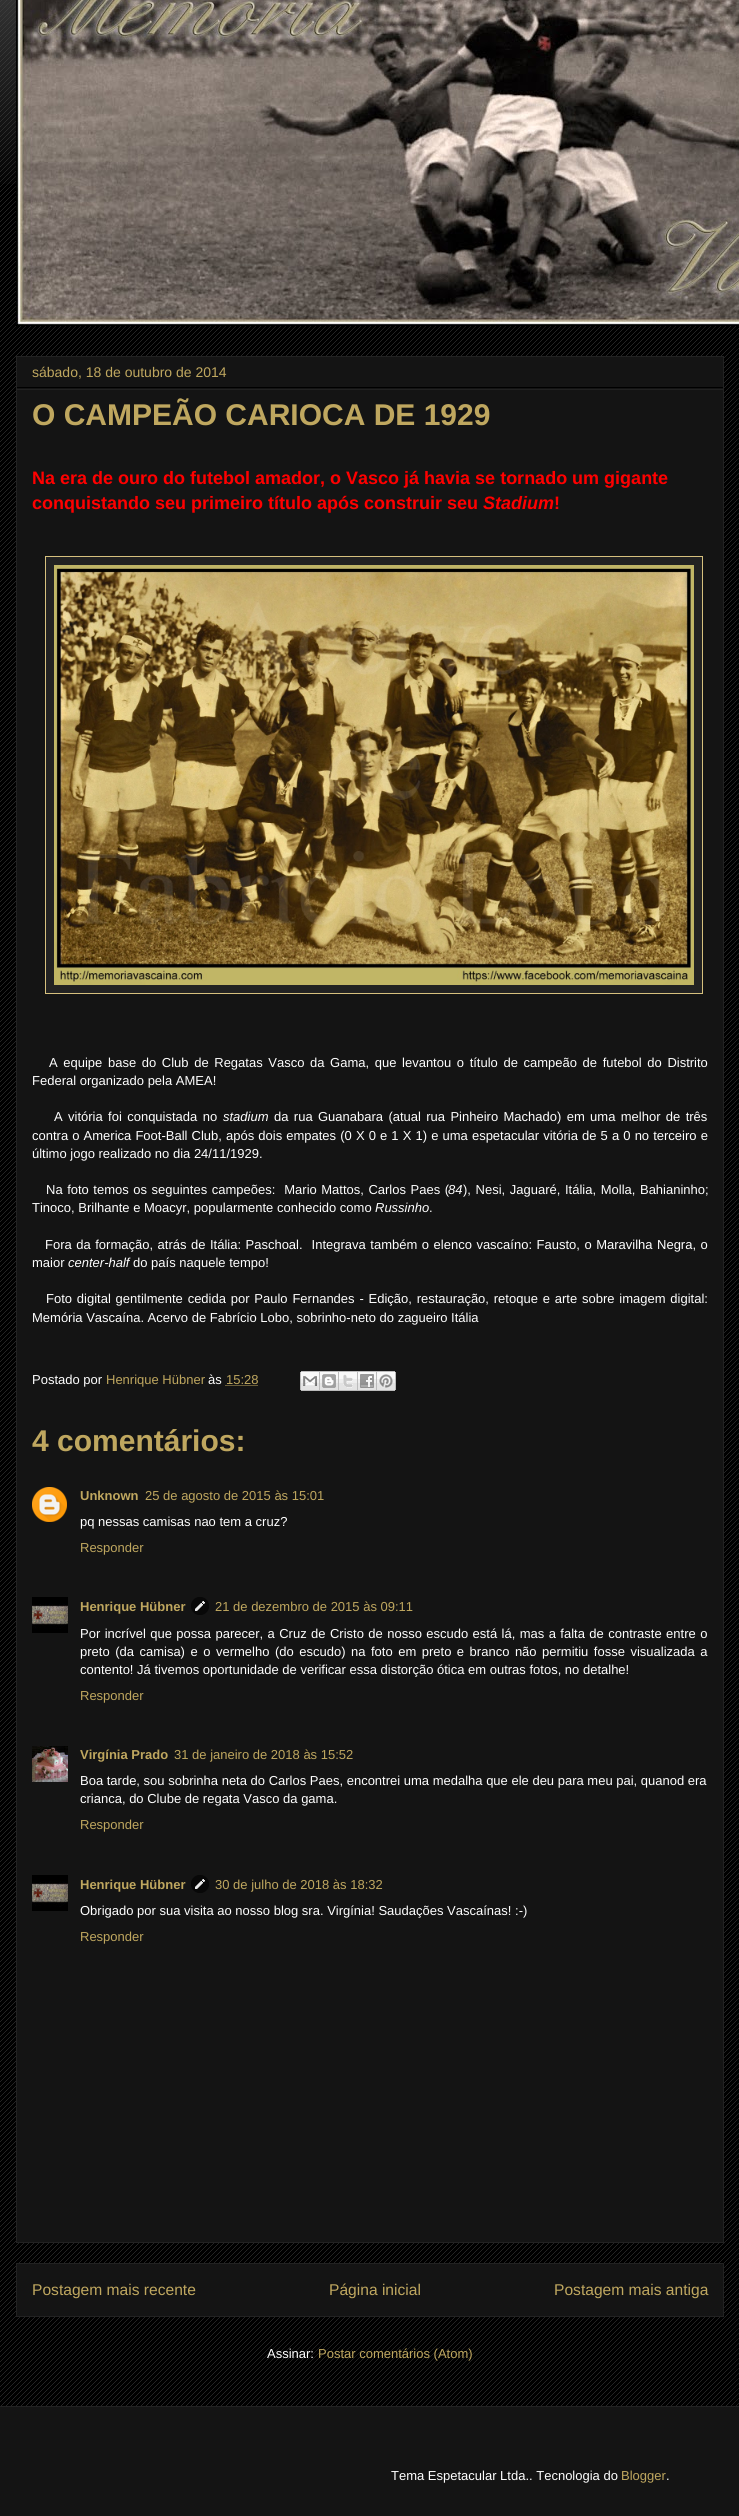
#include <cairo.h>
#include <math.h>
#include <stddef.h>

typedef struct { double x, y; const char *s; } line_t;

static void ink(cairo_t *ctx, unsigned color) {
    cairo_set_source_rgb(ctx, (color >> 16) / 255.0, (color >> 8 & 255) / 255.0, (color & 255) / 255.0);
}

static void write_spaced(cairo_t *ctx, double x, double y, const char *s, double letter, double word) {
    cairo_move_to(ctx, x, y);
    while (*s) {
        char ch[5] = {0};
        int n = 0;
        do ch[n++] = *s++; while ((*s & 0xC0) == 0x80);
        cairo_show_text(ctx, ch);
        cairo_rel_move_to(ctx, letter + word * (*ch == ' '), 0);
    }
}

static void paste(cairo_t *ctx, const char *path, double x, double y, double w, double h) {
    cairo_surface_t *image = cairo_image_surface_create_from_png(path);
    cairo_save(ctx);
    cairo_set_source_surface(ctx, image, x, y);
    cairo_rectangle(ctx, x, y, w, h);
    cairo_fill(ctx);
    cairo_restore(ctx);
    cairo_surface_destroy(image);
}

int main(void) {
    cairo_surface_t *surface = cairo_image_surface_create(CAIRO_FORMAT_RGB24, 739, 2516);
    cairo_t *ctx = cairo_create(surface);
    cairo_font_options_t *options = cairo_font_options_create();
    cairo_font_options_set_hint_metrics(options, CAIRO_HINT_METRICS_OFF);
    cairo_font_options_set_hint_style(options, CAIRO_HINT_STYLE_NONE);
    cairo_set_font_options(ctx, options);
    cairo_set_miter_limit(ctx, 4);
    ink(ctx, 0x000000);
    cairo_paint(ctx);
    paste(ctx, "media/1.png", 0, 0, 739, 2406);
    paste(ctx, "media/2.png", 0, 0, 16, 184);
    paste(ctx, "media/3.png", 16, 0, 723, 326);
    ink(ctx, 0x141414);
    cairo_rectangle(ctx, 16.5, 356.5, 707, 1886);
    cairo_fill_preserve(ctx);
    ink(ctx, 0x222222);
    cairo_set_line_width(ctx, 1);
    cairo_stroke(ctx);
    ink(ctx, 0x000000);
    cairo_rectangle(ctx, 17, 387, 706, 1);
    cairo_fill(ctx);
    cairo_select_font_face(ctx, "Liberation Sans", CAIRO_FONT_SLANT_NORMAL, CAIRO_FONT_WEIGHT_NORMAL);
    cairo_set_font_size(ctx, 14);
    ink(ctx, 0xBFA75F);
    cairo_move_to(ctx, 32, 377);
    cairo_show_text(ctx, "sábado, 18 de outubro de 2014");
    ink(ctx, 0x222222);
    cairo_rectangle(ctx, 17, 389, 706, 1);
    cairo_fill(ctx);
    cairo_select_font_face(ctx, "Liberation Sans", CAIRO_FONT_SLANT_NORMAL, CAIRO_FONT_WEIGHT_BOLD);
    cairo_set_font_size(ctx, 30);
    ink(ctx, 0xBFA75F);
    cairo_move_to(ctx, 32, 425);
    cairo_show_text(ctx, "O CAMPEÃO CARIOCA DE 1929");
    cairo_set_font_size(ctx, 18);
    ink(ctx, 0xFF0000);
    cairo_move_to(ctx, 32, 484);
    cairo_show_text(ctx, "Na era de ouro do futebol amador, o Vasco já havia se tornado um gigante");
    cairo_move_to(ctx, 32, 509);
    cairo_show_text(ctx, "conquistando seu primeiro título após construir seu");
    cairo_select_font_face(ctx, "Liberation Sans", CAIRO_FONT_SLANT_ITALIC, CAIRO_FONT_WEIGHT_BOLD);
    cairo_move_to(ctx, 483, 509);
    cairo_show_text(ctx, "Stadium");
    cairo_select_font_face(ctx, "Liberation Sans", CAIRO_FONT_SLANT_NORMAL, CAIRO_FONT_WEIGHT_BOLD);
    cairo_move_to(ctx, 554, 509);
    cairo_show_text(ctx, "!");
    ink(ctx, 0x222222);
    cairo_rectangle(ctx, 45.5, 556.5, 657, 437);
    cairo_fill_preserve(ctx);
    ink(ctx, 0xD6C07E);
    cairo_stroke(ctx);
    paste(ctx, "media/4.png", 54, 565, 640, 420);
    cairo_select_font_face(ctx, "Liberation Sans", CAIRO_FONT_SLANT_NORMAL, CAIRO_FONT_WEIGHT_NORMAL);
    cairo_set_font_size(ctx, 13);
    ink(ctx, 0xFFFFFF);
    write_spaced(ctx, 49, 1067, "A equipe base do Club de Regatas Vasco da Gama, que levantou o título de campeão de futebol do Distrito", 0, 2);
    cairo_move_to(ctx, 32, 1085);
    cairo_show_text(ctx, "Federal organizado pela AMEA!");
    write_spaced(ctx, 54, 1121, "A vitória foi conquistada no", 0, 1.75);
    cairo_select_font_face(ctx, "Liberation Sans", CAIRO_FONT_SLANT_ITALIC, CAIRO_FONT_WEIGHT_NORMAL);
    cairo_move_to(ctx, 223, 1121);
    cairo_show_text(ctx, "stadium");
    cairo_select_font_face(ctx, "Liberation Sans", CAIRO_FONT_SLANT_NORMAL, CAIRO_FONT_WEIGHT_NORMAL);
    write_spaced(ctx, 274, 1121, "da rua Guanabara (atual rua Pinheiro Machado) em uma melhor de três", 0, 1.75);
    write_spaced(ctx, 32, 1140, "contra o America Foot-Ball Club, após dois empates (0 X 0 e 1 X 1) e uma espetacular vitória de 5 a 0 no terceiro e", 0, 0.5);
    cairo_move_to(ctx, 32, 1158);
    cairo_show_text(ctx, "último jogo realizado no dia 24/11/1929.");
    write_spaced(ctx, 46, 1194, "Na foto temos os seguintes campeões:  Mario Mattos, Carlos Paes (", 0, 0.9);
    cairo_select_font_face(ctx, "Liberation Sans", CAIRO_FONT_SLANT_ITALIC, CAIRO_FONT_WEIGHT_NORMAL);
    cairo_move_to(ctx, 448, 1194);
    cairo_show_text(ctx, "84");
    cairo_select_font_face(ctx, "Liberation Sans", CAIRO_FONT_SLANT_NORMAL, CAIRO_FONT_WEIGHT_NORMAL);
    write_spaced(ctx, 463, 1194, "), Nesi, Jaguaré, Itália, Molla, Bahianinho;", 0, 1);
    cairo_move_to(ctx, 32, 1212);
    cairo_show_text(ctx, "Tinoco, Brilhante e Moacyr, popularmente conhecido como");
    cairo_select_font_face(ctx, "Liberation Sans", CAIRO_FONT_SLANT_ITALIC, CAIRO_FONT_WEIGHT_NORMAL);
    cairo_move_to(ctx, 375, 1212);
    cairo_show_text(ctx, "Russinho");
    cairo_select_font_face(ctx, "Liberation Sans", CAIRO_FONT_SLANT_NORMAL, CAIRO_FONT_WEIGHT_NORMAL);
    cairo_move_to(ctx, 429, 1212);
    cairo_show_text(ctx, ".");
    write_spaced(ctx, 45, 1249, "Fora da formação, atrás de Itália: Paschoal.  Integrava também o elenco vascaíno: Fausto, o Maravilha Negra, o", 0, 0.9);
    cairo_move_to(ctx, 32, 1267);
    cairo_show_text(ctx, "maior");
    cairo_select_font_face(ctx, "Liberation Sans", CAIRO_FONT_SLANT_ITALIC, CAIRO_FONT_WEIGHT_NORMAL);
    cairo_move_to(ctx, 68, 1267);
    cairo_show_text(ctx, "center-half");
    cairo_select_font_face(ctx, "Liberation Sans", CAIRO_FONT_SLANT_NORMAL, CAIRO_FONT_WEIGHT_NORMAL);
    cairo_move_to(ctx, 133, 1267);
    cairo_show_text(ctx, "do país naquele tempo!");
    write_spaced(ctx, 46, 1303, "Foto digital gentilmente cedida por Paulo Fernandes - Edição, restauração, retoque e arte sobre imagem digital:", 0, 1.2);
    cairo_move_to(ctx, 32, 1322);
    cairo_show_text(ctx, "Memória Vascaína. Acervo de Fabrício Lobo, sobrinho-neto do zagueiro Itália");
    cairo_move_to(ctx, 32, 1384);
    cairo_show_text(ctx, "Postado por");
    ink(ctx, 0xBFA75F);
    cairo_move_to(ctx, 106, 1384);
    cairo_show_text(ctx, "Henrique Hübner");
    ink(ctx, 0xFFFFFF);
    cairo_move_to(ctx, 208, 1384);
    cairo_show_text(ctx, "às");
    ink(ctx, 0xBFA75F);
    cairo_move_to(ctx, 226, 1384);
    cairo_show_text(ctx, "15:28");
    cairo_new_path(ctx);
    cairo_move_to(ctx, 225.5, 1385.5);
    cairo_line_to(ctx, 258, 1385.5);
    cairo_set_dash(ctx, (double[]){1, 1}, 2, 0);
    cairo_stroke(ctx);
    paste(ctx, "media/5.png", 300, 1371, 20, 20);
    paste(ctx, "media/6.png", 320, 1371, 19, 20);
    paste(ctx, "media/7.png", 339, 1371, 19, 20);
    paste(ctx, "media/8.png", 358, 1371, 19, 20);
    paste(ctx, "media/9.png", 377, 1371, 19, 20);
    cairo_select_font_face(ctx, "Liberation Sans", CAIRO_FONT_SLANT_NORMAL, CAIRO_FONT_WEIGHT_BOLD);
    cairo_set_font_size(ctx, 30);
    cairo_move_to(ctx, 32, 1451);
    cairo_show_text(ctx, "4 comentários:");
    paste(ctx, "media/10.png", 32, 1487, 35, 35);
    cairo_set_font_size(ctx, 13);
    cairo_move_to(ctx, 80, 1500);
    cairo_show_text(ctx, "Unknown");
    cairo_select_font_face(ctx, "Liberation Sans", CAIRO_FONT_SLANT_NORMAL, CAIRO_FONT_WEIGHT_NORMAL);
    cairo_move_to(ctx, 145, 1500);
    cairo_show_text(ctx, "25 de agosto de 2015 às 15:01");
    ink(ctx, 0xFFFFFF);
    cairo_move_to(ctx, 80, 1526);
    cairo_show_text(ctx, "pq nessas camisas nao tem a cruz?");
    ink(ctx, 0xBFA75F);
    cairo_move_to(ctx, 80, 1552);
    cairo_show_text(ctx, "Responder");
    paste(ctx, "media/11.png", 32, 1597, 36, 36);
    cairo_select_font_face(ctx, "Liberation Sans", CAIRO_FONT_SLANT_NORMAL, CAIRO_FONT_WEIGHT_BOLD);
    cairo_move_to(ctx, 80, 1611);
    cairo_show_text(ctx, "Henrique Hübner");
    paste(ctx, "media/12.png", 191, 1597, 18, 18);
    cairo_select_font_face(ctx, "Liberation Sans", CAIRO_FONT_SLANT_NORMAL, CAIRO_FONT_WEIGHT_NORMAL);
    cairo_move_to(ctx, 215, 1611);
    cairo_show_text(ctx, "21 de dezembro de 2015 às 09:11");
    ink(ctx, 0xFFFFFF);
    write_spaced(ctx, 80, 1638, "Por incrível que possa parecer, a Cruz de Cristo de nosso escudo está lá, mas a falta de contraste entre o", 0, 0.8);
    write_spaced(ctx, 80, 1656, "preto (da camisa) e o vermelho (do escudo) na foto em preto e branco não permitiu fosse visualizada a", 0, 1.9);
    cairo_move_to(ctx, 80, 1674);
    cairo_show_text(ctx, "contento! Já tivemos oportunidade de verificar essa distorção ótica em outras fotos, no detalhe!");
    ink(ctx, 0xBFA75F);
    cairo_move_to(ctx, 80, 1700);
    cairo_show_text(ctx, "Responder");
    paste(ctx, "media/13.png", 32, 1746, 36, 36);
    cairo_select_font_face(ctx, "Liberation Sans", CAIRO_FONT_SLANT_NORMAL, CAIRO_FONT_WEIGHT_BOLD);
    cairo_move_to(ctx, 80, 1759);
    cairo_show_text(ctx, "Virgínia Prado");
    cairo_select_font_face(ctx, "Liberation Sans", CAIRO_FONT_SLANT_NORMAL, CAIRO_FONT_WEIGHT_NORMAL);
    cairo_move_to(ctx, 174, 1759);
    cairo_show_text(ctx, "31 de janeiro de 2018 às 15:52");
    ink(ctx, 0xFFFFFF);
    cairo_move_to(ctx, 80, 1785);
    cairo_show_text(ctx, "Boa tarde, sou sobrinha neta do Carlos Paes, encontrei uma medalha que ele deu para meu pai, quanod era");
    cairo_move_to(ctx, 80, 1803);
    cairo_show_text(ctx, "crianca, do Clube de regata Vasco da gama.");
    ink(ctx, 0xBFA75F);
    cairo_move_to(ctx, 80, 1829);
    cairo_show_text(ctx, "Responder");
    paste(ctx, "media/11.png", 32, 1875, 36, 36);
    cairo_select_font_face(ctx, "Liberation Sans", CAIRO_FONT_SLANT_NORMAL, CAIRO_FONT_WEIGHT_BOLD);
    cairo_move_to(ctx, 80, 1889);
    cairo_show_text(ctx, "Henrique Hübner");
    paste(ctx, "media/12.png", 191, 1875, 18, 18);
    cairo_select_font_face(ctx, "Liberation Sans", CAIRO_FONT_SLANT_NORMAL, CAIRO_FONT_WEIGHT_NORMAL);
    cairo_move_to(ctx, 215, 1889);
    cairo_show_text(ctx, "30 de julho de 2018 às 18:32");
    ink(ctx, 0xFFFFFF);
    cairo_move_to(ctx, 80, 1915);
    cairo_show_text(ctx, "Obrigado por sua visita ao nosso blog sra. Virgínia! Saudações Vascaínas! :-)");
    ink(ctx, 0xBFA75F);
    cairo_move_to(ctx, 80, 1941);
    cairo_show_text(ctx, "Responder");
    ink(ctx, 0x141414);
    cairo_rectangle(ctx, 16.5, 2263.5, 707, 53);
    cairo_fill_preserve(ctx);
    ink(ctx, 0x222222);
    cairo_set_dash(ctx, NULL, 0, 0);
    cairo_stroke(ctx);
    cairo_set_font_size(ctx, 15.6);
    ink(ctx, 0xBFA75F);
    {
        static const line_t items[] = {
            {32, 2295, "Postagem mais recente"},
            {329, 2295, "Página inicial"},
            {554, 2295, "Postagem mais antiga"},
        };
        for (size_t i = 0; i < sizeof items / sizeof *items; i++) {
            cairo_move_to(ctx, items[i].x, items[i].y);
            cairo_show_text(ctx, items[i].s);
        }
    }
    cairo_set_font_size(ctx, 13);
    ink(ctx, 0xFFFFFF);
    cairo_move_to(ctx, 267, 2358);
    cairo_show_text(ctx, "Assinar:");
    ink(ctx, 0xBFA75F);
    cairo_move_to(ctx, 318, 2358);
    cairo_show_text(ctx, "Postar comentários (Atom)");
    ink(ctx, 0x141414);
    cairo_rectangle(ctx, 0, 2407, 739, 109);
    cairo_fill(ctx);
    ink(ctx, 0x222222);
    cairo_rectangle(ctx, 0, 2406, 739, 1);
    cairo_fill(ctx);
    ink(ctx, 0xFFFFFF);
    cairo_move_to(ctx, 391, 2480);
    cairo_show_text(ctx, "Tema Espetacular Ltda.. Tecnologia do");
    ink(ctx, 0xBFA75F);
    cairo_move_to(ctx, 621, 2480);
    cairo_show_text(ctx, "Blogger");
    ink(ctx, 0xFFFFFF);
    cairo_move_to(ctx, 666, 2480);
    cairo_show_text(ctx, ".");
    cairo_surface_write_to_png(surface, "image.png");
    cairo_font_options_destroy(options);
    cairo_destroy(ctx);
    cairo_surface_destroy(surface);
    return 0;
}
